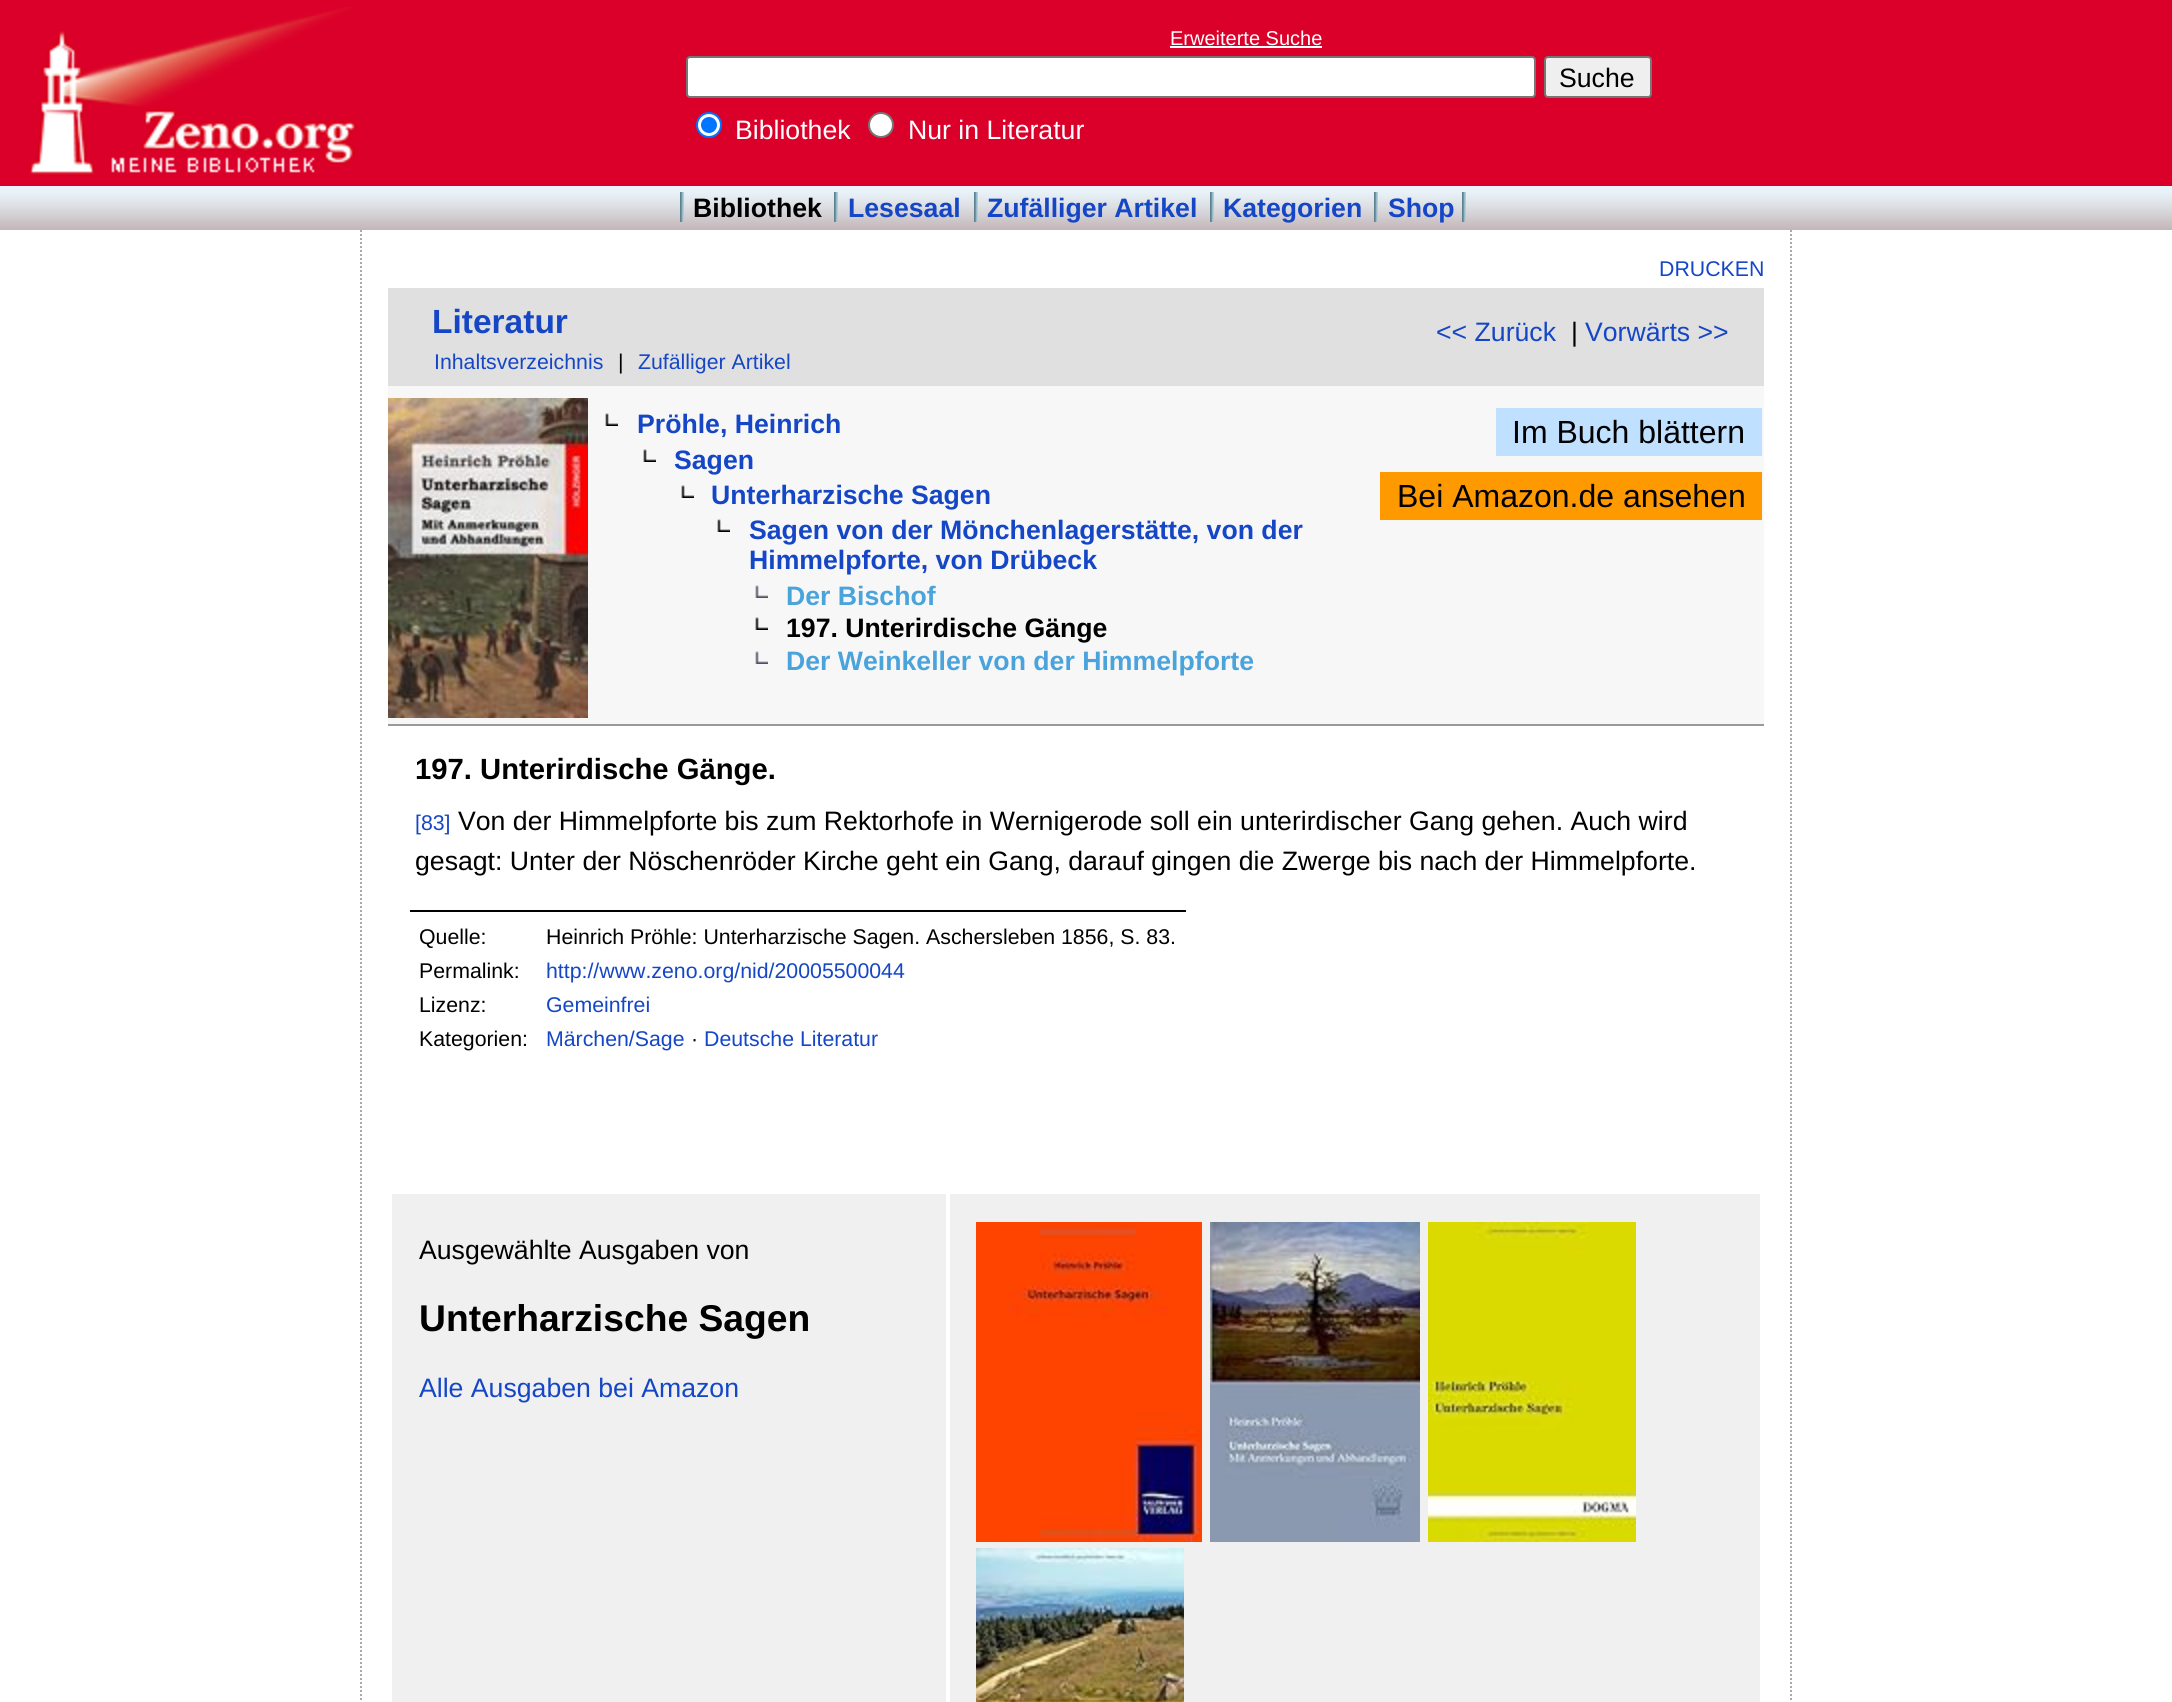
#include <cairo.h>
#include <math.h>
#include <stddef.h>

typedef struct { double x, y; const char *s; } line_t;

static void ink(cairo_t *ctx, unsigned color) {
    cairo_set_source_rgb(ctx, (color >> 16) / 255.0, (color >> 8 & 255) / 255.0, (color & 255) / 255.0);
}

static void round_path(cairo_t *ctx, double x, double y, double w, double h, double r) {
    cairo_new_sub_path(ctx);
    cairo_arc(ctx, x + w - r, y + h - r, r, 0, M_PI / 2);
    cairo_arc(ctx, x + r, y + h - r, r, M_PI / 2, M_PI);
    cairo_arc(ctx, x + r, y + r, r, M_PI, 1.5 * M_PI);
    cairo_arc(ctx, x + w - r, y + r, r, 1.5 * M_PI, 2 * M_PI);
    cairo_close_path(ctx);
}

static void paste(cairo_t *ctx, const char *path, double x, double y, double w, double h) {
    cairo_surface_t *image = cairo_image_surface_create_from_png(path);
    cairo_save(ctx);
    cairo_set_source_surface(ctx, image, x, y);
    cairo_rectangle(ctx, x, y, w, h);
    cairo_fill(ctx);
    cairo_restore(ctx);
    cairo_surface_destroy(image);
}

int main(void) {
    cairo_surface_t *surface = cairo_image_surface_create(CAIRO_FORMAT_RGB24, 2172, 1702);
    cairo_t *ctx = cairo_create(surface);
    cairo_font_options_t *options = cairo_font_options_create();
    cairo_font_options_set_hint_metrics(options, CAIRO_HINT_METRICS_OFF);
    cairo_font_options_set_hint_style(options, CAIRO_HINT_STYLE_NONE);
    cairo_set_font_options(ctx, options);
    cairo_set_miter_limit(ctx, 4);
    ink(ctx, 0xFFFFFF);
    cairo_paint(ctx);
    ink(ctx, 0xDB0029);
    cairo_rectangle(ctx, 0, 0, 2172, 186);
    cairo_fill(ctx);
    paste(ctx, "media/1.png", 28, 7, 329, 169);
    cairo_select_font_face(ctx, "Liberation Sans", CAIRO_FONT_SLANT_NORMAL, CAIRO_FONT_WEIGHT_NORMAL);
    cairo_set_font_size(ctx, 20);
    ink(ctx, 0xFFFFFF);
    cairo_move_to(ctx, 1170, 45);
    cairo_show_text(ctx, "Erweiterte Suche");
    cairo_rectangle(ctx, 1170, 46, 152, 2);
    cairo_fill(ctx);
    round_path(ctx, 687, 57, 848, 40, 3);
    cairo_fill_preserve(ctx);
    ink(ctx, 0x767676);
    cairo_stroke(ctx);
    ink(ctx, 0xEFEFEF);
    round_path(ctx, 1545, 57, 106, 40, 3);
    cairo_fill_preserve(ctx);
    ink(ctx, 0x767676);
    cairo_stroke(ctx);
    cairo_set_font_size(ctx, 26.65);
    ink(ctx, 0x000000);
    cairo_move_to(ctx, 1559, 87);
    cairo_show_text(ctx, "Suche");
    ink(ctx, 0xFFFFFF);
    cairo_new_path(ctx);
    cairo_arc(ctx, 709, 125, 12, 0, 2 * M_PI);
    cairo_fill_preserve(ctx);
    ink(ctx, 0x0075FF);
    cairo_stroke(ctx);
    cairo_arc(ctx, 709, 125, 8, 0, 2 * M_PI);
    cairo_fill(ctx);
    ink(ctx, 0xFFFFFF);
    cairo_move_to(ctx, 735, 139);
    cairo_show_text(ctx, "Bibliothek");
    cairo_new_path(ctx);
    cairo_arc(ctx, 881, 125, 12, 0, 2 * M_PI);
    cairo_fill_preserve(ctx);
    ink(ctx, 0x767676);
    cairo_stroke(ctx);
    ink(ctx, 0xFFFFFF);
    cairo_move_to(ctx, 908, 139);
    cairo_show_text(ctx, "Nur in Literatur");
    paste(ctx, "media/2.png", 0, 186, 2172, 44);
    paste(ctx, "media/3.png", 680, 192, 4, 30);
    cairo_select_font_face(ctx, "Liberation Sans", CAIRO_FONT_SLANT_NORMAL, CAIRO_FONT_WEIGHT_BOLD);
    ink(ctx, 0x000000);
    cairo_move_to(ctx, 693, 217);
    cairo_show_text(ctx, "Bibliothek");
    paste(ctx, "media/3.png", 834, 192, 4, 30);
    ink(ctx, 0x1446C6);
    cairo_move_to(ctx, 848, 217);
    cairo_show_text(ctx, "Lesesaal");
    paste(ctx, "media/3.png", 974, 192, 4, 30);
    cairo_move_to(ctx, 987, 217);
    cairo_show_text(ctx, "Zufälliger Artikel");
    paste(ctx, "media/3.png", 1210, 192, 4, 30);
    cairo_move_to(ctx, 1223, 217);
    cairo_show_text(ctx, "Kategorien");
    paste(ctx, "media/3.png", 1374, 192, 4, 30);
    cairo_move_to(ctx, 1388, 217);
    cairo_show_text(ctx, "Shop");
    paste(ctx, "media/3.png", 1462, 192, 4, 30);
    cairo_new_path(ctx);
    cairo_move_to(ctx, 1791, 230);
    cairo_line_to(ctx, 1791, 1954);
    ink(ctx, 0xAAAAAA);
    cairo_set_dash(ctx, (double[]){2, 2}, 2, 0);
    cairo_stroke(ctx);
    cairo_new_path(ctx);
    cairo_move_to(ctx, 361, 230);
    cairo_line_to(ctx, 361, 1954);
    cairo_stroke(ctx);
    cairo_select_font_face(ctx, "Liberation Sans", CAIRO_FONT_SLANT_NORMAL, CAIRO_FONT_WEIGHT_NORMAL);
    cairo_set_font_size(ctx, 21.3);
    ink(ctx, 0x1446C6);
    cairo_move_to(ctx, 1659, 276);
    cairo_show_text(ctx, "DRUCKEN");
    ink(ctx, 0xE0E0E0);
    cairo_rectangle(ctx, 388, 288, 1376, 98);
    cairo_fill(ctx);
    cairo_select_font_face(ctx, "Liberation Sans", CAIRO_FONT_SLANT_NORMAL, CAIRO_FONT_WEIGHT_BOLD);
    cairo_set_font_size(ctx, 33.5);
    ink(ctx, 0x1446C6);
    cairo_move_to(ctx, 432, 333);
    cairo_show_text(ctx, "Literatur");
    cairo_select_font_face(ctx, "Liberation Sans", CAIRO_FONT_SLANT_NORMAL, CAIRO_FONT_WEIGHT_NORMAL);
    cairo_set_font_size(ctx, 26.65);
    cairo_move_to(ctx, 1436, 341);
    cairo_show_text(ctx, "<< Zurück");
    ink(ctx, 0x000000);
    cairo_move_to(ctx, 1571, 341);
    cairo_show_text(ctx, "|");
    ink(ctx, 0x1446C6);
    cairo_move_to(ctx, 1585, 341);
    cairo_show_text(ctx, "Vorwärts >>");
    cairo_set_font_size(ctx, 21.3);
    cairo_move_to(ctx, 434, 369);
    cairo_show_text(ctx, "Inhaltsverzeichnis");
    ink(ctx, 0x000000);
    cairo_move_to(ctx, 618, 369);
    cairo_show_text(ctx, "|");
    ink(ctx, 0x1446C6);
    cairo_move_to(ctx, 638, 369);
    cairo_show_text(ctx, "Zufälliger Artikel");
    ink(ctx, 0xF7F7F7);
    cairo_rectangle(ctx, 388, 386, 1376, 338);
    cairo_fill(ctx);
    ink(ctx, 0x999999);
    cairo_rectangle(ctx, 388, 724, 1376, 2);
    cairo_fill(ctx);
    paste(ctx, "media/4.png", 388, 398, 200, 320);
    paste(ctx, "media/5.png", 605, 413, 13, 13);
    cairo_select_font_face(ctx, "Liberation Sans", CAIRO_FONT_SLANT_NORMAL, CAIRO_FONT_WEIGHT_BOLD);
    cairo_set_font_size(ctx, 26.65);
    ink(ctx, 0x1446C6);
    cairo_move_to(ctx, 637, 433);
    cairo_show_text(ctx, "Pröhle, Heinrich");
    paste(ctx, "media/5.png", 643, 449, 13, 13);
    cairo_move_to(ctx, 674, 469);
    cairo_show_text(ctx, "Sagen");
    paste(ctx, "media/5.png", 681, 485, 13, 13);
    cairo_move_to(ctx, 711, 504);
    cairo_show_text(ctx, "Unterharzische Sagen");
    paste(ctx, "media/5.png", 717, 519, 13, 13);
    cairo_move_to(ctx, 749, 539);
    cairo_show_text(ctx, "Sagen von der Mönchenlagerstätte, von der");
    cairo_move_to(ctx, 749, 569);
    cairo_show_text(ctx, "Himmelpforte, von Drübeck");
    paste(ctx, "media/6.png", 755, 585, 13, 13);
    ink(ctx, 0x4BA3DB);
    cairo_move_to(ctx, 786, 605);
    cairo_show_text(ctx, "Der Bischof");
    paste(ctx, "media/5.png", 755, 617, 13, 13);
    ink(ctx, 0x000000);
    cairo_move_to(ctx, 786, 637);
    cairo_show_text(ctx, "197. Unterirdische Gänge");
    paste(ctx, "media/6.png", 755, 651, 13, 13);
    ink(ctx, 0x4BA3DB);
    cairo_move_to(ctx, 786, 670);
    cairo_show_text(ctx, "Der Weinkeller von der Himmelpforte");
    ink(ctx, 0xC0E0FF);
    cairo_rectangle(ctx, 1496, 408, 266, 48);
    cairo_fill(ctx);
    cairo_select_font_face(ctx, "Liberation Sans", CAIRO_FONT_SLANT_NORMAL, CAIRO_FONT_WEIGHT_NORMAL);
    cairo_set_font_size(ctx, 32);
    ink(ctx, 0x000000);
    cairo_move_to(ctx, 1512, 443);
    cairo_show_text(ctx, "Im Buch blättern");
    ink(ctx, 0xFF9900);
    cairo_rectangle(ctx, 1380, 472, 382, 48);
    cairo_fill(ctx);
    ink(ctx, 0x000000);
    cairo_move_to(ctx, 1397, 507);
    cairo_show_text(ctx, "Bei Amazon.de ansehen");
    cairo_select_font_face(ctx, "Liberation Sans", CAIRO_FONT_SLANT_NORMAL, CAIRO_FONT_WEIGHT_BOLD);
    cairo_set_font_size(ctx, 29.25);
    cairo_move_to(ctx, 415, 779);
    cairo_show_text(ctx, "197. Unterirdische Gänge.");
    cairo_select_font_face(ctx, "Liberation Sans", CAIRO_FONT_SLANT_NORMAL, CAIRO_FONT_WEIGHT_NORMAL);
    cairo_set_font_size(ctx, 21.3);
    ink(ctx, 0x1446C6);
    cairo_move_to(ctx, 415, 830);
    cairo_show_text(ctx, "[83]");
    cairo_set_font_size(ctx, 26.65);
    ink(ctx, 0x000000);
    cairo_move_to(ctx, 458, 830);
    cairo_show_text(ctx, "Von der Himmelpforte bis zum Rektorhofe in Wernigerode soll ein unterirdischer Gang gehen. Auch wird");
    cairo_move_to(ctx, 415, 870);
    cairo_show_text(ctx, "gesagt: Unter der Nöschenröder Kirche geht ein Gang, darauf gingen die Zwerge bis nach der Himmelpforte.");
    cairo_rectangle(ctx, 410, 910, 776, 2);
    cairo_fill(ctx);
    cairo_set_font_size(ctx, 21.3);
    {
        static const line_t items[] = {
            {419, 944, "Quelle:"},
            {546, 944, "Heinrich Pröhle: Unterharzische Sagen. Aschersleben 1856, S. 83."},
            {419, 978, "Permalink:"},
        };
        for (size_t i = 0; i < sizeof items / sizeof *items; i++) {
            cairo_move_to(ctx, items[i].x, items[i].y);
            cairo_show_text(ctx, items[i].s);
        }
    }
    ink(ctx, 0x1446C6);
    cairo_move_to(ctx, 546, 978);
    cairo_show_text(ctx, "http://www.zeno.org/nid/20005500044");
    ink(ctx, 0x000000);
    cairo_move_to(ctx, 419, 1012);
    cairo_show_text(ctx, "Lizenz:");
    ink(ctx, 0x1446C6);
    cairo_move_to(ctx, 546, 1012);
    cairo_show_text(ctx, "Gemeinfrei");
    ink(ctx, 0x000000);
    cairo_move_to(ctx, 419, 1046);
    cairo_show_text(ctx, "Kategorien:");
    ink(ctx, 0x1446C6);
    cairo_move_to(ctx, 546, 1046);
    cairo_show_text(ctx, "Märchen/Sage");
    ink(ctx, 0x000000);
    cairo_move_to(ctx, 691, 1046);
    cairo_show_text(ctx, "·");
    ink(ctx, 0x1446C6);
    cairo_move_to(ctx, 704, 1046);
    cairo_show_text(ctx, "Deutsche Literatur");
    ink(ctx, 0xF0F0F0);
    cairo_rectangle(ctx, 392, 1194, 554, 508);
    cairo_fill(ctx);
    cairo_set_font_size(ctx, 26.65);
    ink(ctx, 0x000000);
    cairo_move_to(ctx, 419, 1259);
    cairo_show_text(ctx, "Ausgewählte Ausgaben von");
    cairo_select_font_face(ctx, "Liberation Sans", CAIRO_FONT_SLANT_NORMAL, CAIRO_FONT_WEIGHT_BOLD);
    cairo_set_font_size(ctx, 37.25);
    cairo_move_to(ctx, 419, 1331);
    cairo_show_text(ctx, "Unterharzische Sagen");
    cairo_select_font_face(ctx, "Liberation Sans", CAIRO_FONT_SLANT_NORMAL, CAIRO_FONT_WEIGHT_NORMAL);
    cairo_set_font_size(ctx, 26.65);
    ink(ctx, 0x1446C6);
    cairo_move_to(ctx, 419, 1397);
    cairo_show_text(ctx, "Alle Ausgaben bei Amazon");
    ink(ctx, 0xF0F0F0);
    cairo_rectangle(ctx, 950, 1194, 810, 508);
    cairo_fill(ctx);
    paste(ctx, "media/7.png", 976, 1222, 226, 320);
    paste(ctx, "media/8.png", 1210, 1222, 210, 320);
    paste(ctx, "media/9.png", 1428, 1222, 208, 320);
    paste(ctx, "media/10.png", 976, 1548, 208, 154);
    cairo_surface_write_to_png(surface, "image.png");
    cairo_font_options_destroy(options);
    cairo_destroy(ctx);
    cairo_surface_destroy(surface);
    return 0;
}
